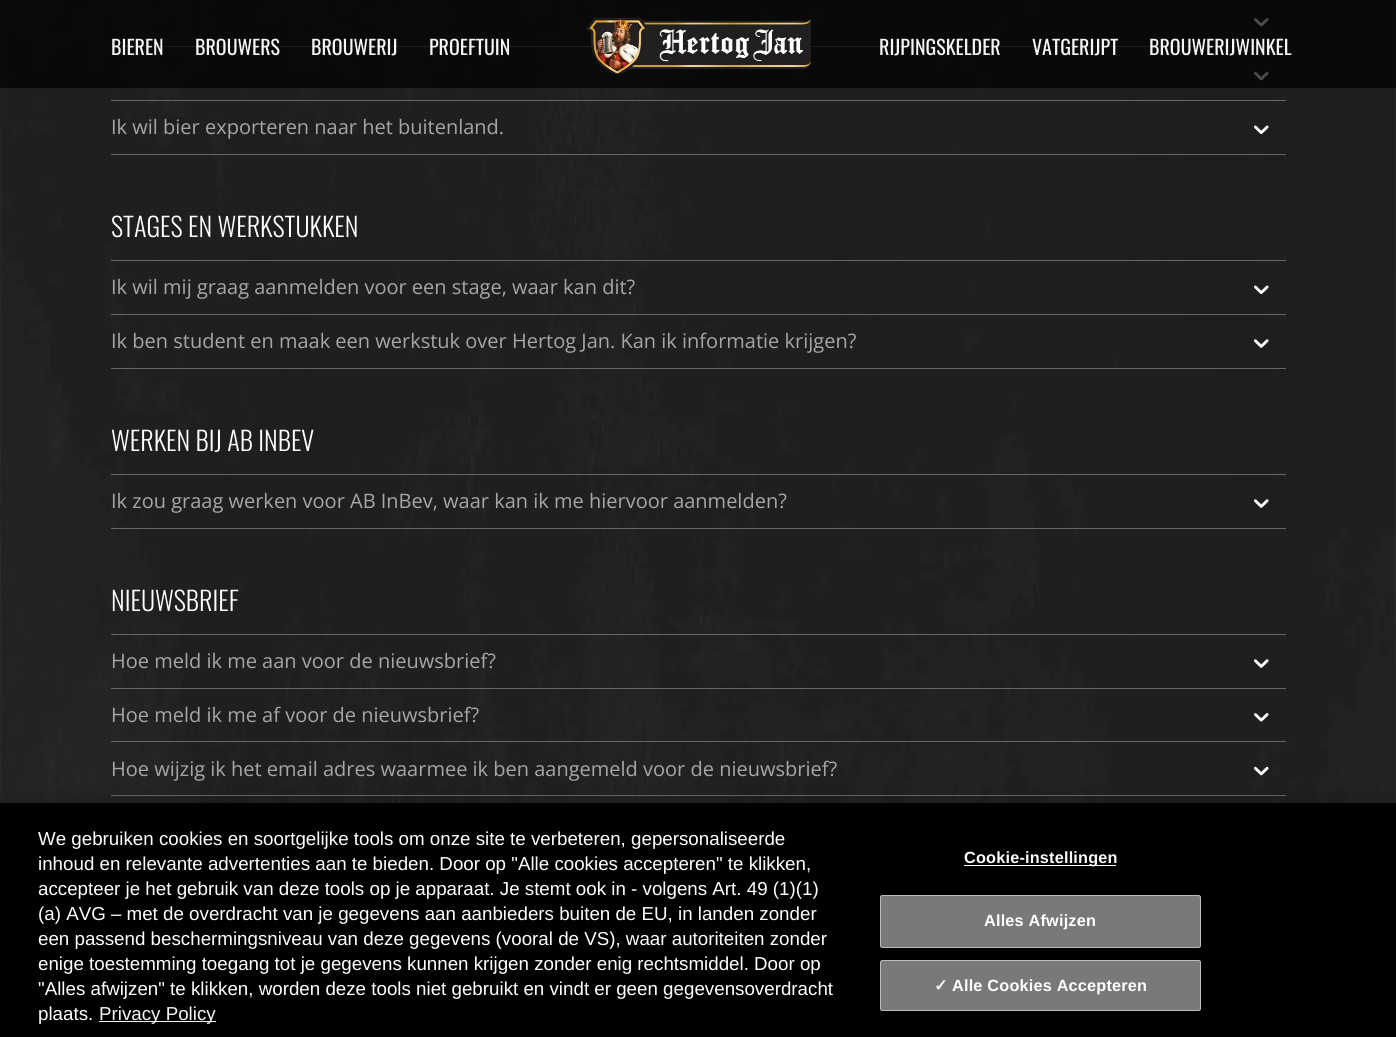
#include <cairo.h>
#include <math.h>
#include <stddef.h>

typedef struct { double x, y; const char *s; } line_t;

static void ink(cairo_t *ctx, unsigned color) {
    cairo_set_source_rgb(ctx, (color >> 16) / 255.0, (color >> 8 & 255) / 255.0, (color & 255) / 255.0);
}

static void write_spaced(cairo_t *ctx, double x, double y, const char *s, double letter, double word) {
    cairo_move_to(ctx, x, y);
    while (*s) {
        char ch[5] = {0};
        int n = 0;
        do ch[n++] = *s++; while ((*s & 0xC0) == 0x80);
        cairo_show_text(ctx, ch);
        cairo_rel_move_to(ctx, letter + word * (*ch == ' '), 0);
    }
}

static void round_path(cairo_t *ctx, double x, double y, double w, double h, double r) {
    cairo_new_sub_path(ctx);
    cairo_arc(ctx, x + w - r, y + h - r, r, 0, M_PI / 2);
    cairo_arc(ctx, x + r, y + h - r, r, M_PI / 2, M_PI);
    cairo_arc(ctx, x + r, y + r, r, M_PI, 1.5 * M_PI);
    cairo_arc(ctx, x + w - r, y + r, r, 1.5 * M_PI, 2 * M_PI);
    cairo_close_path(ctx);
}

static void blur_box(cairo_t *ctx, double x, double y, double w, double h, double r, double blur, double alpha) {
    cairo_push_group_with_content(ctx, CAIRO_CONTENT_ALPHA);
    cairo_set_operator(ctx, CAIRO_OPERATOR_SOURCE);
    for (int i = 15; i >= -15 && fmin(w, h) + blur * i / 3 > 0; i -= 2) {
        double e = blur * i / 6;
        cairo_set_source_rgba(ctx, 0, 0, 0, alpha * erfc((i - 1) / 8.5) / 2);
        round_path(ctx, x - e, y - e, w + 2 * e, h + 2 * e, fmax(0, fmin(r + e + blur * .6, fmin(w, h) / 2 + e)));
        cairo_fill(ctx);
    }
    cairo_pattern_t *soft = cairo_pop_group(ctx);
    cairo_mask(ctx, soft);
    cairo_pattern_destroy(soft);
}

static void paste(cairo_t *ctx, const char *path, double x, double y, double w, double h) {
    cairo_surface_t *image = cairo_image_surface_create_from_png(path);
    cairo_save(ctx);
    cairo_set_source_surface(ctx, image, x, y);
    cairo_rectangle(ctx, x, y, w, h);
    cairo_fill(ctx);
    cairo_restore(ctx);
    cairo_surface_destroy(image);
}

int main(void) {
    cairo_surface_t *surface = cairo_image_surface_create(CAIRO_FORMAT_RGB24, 1396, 1037);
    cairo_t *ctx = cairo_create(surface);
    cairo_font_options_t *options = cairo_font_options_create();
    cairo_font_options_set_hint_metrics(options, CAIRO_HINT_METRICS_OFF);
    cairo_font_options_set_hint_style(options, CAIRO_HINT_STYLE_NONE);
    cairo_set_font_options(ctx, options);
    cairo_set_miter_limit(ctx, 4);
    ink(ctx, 0xFFFFFF);
    cairo_paint(ctx);
    paste(ctx, "media/1.png", 0, 0, 1396, 803);
    paste(ctx, "media/3.png", 1254, 18, 15, 9);
    ink(ctx, 0x666666);
    cairo_rectangle(ctx, 111, 46, 1175, 1);
    cairo_fill(ctx);
    paste(ctx, "media/4.png", 1254, 71, 15, 10);
    cairo_set_source_rgba(ctx, 0, 0, 0, 0.7);
    cairo_rectangle(ctx, 0, 0, 1396, 88);
    cairo_fill(ctx);
    paste(ctx, "media/2.png", 586, 17, 225, 57);
    cairo_select_font_face(ctx, "Oswald", CAIRO_FONT_SLANT_NORMAL, CAIRO_FONT_WEIGHT_NORMAL);
    cairo_set_font_size(ctx, 20);
    ink(ctx, 0xF6F6F6);
    {
        static const line_t items[] = {
            {111, 55, "BIEREN"},
            {195, 55, "BROUWERS"},
            {311, 55, "BROUWERIJ"},
            {429, 55, "PROEFTUIN"},
            {879, 55, "RIJPINGSKELDER"},
            {1032, 55, "VATGERIJPT"},
            {1149, 55, "BROUWERIJWINKEL"},
        };
        for (size_t i = 0; i < sizeof items / sizeof *items; i++) {
            cairo_move_to(ctx, items[i].x, items[i].y);
            cairo_show_text(ctx, items[i].s);
        }
    }
    ink(ctx, 0x666666);
    cairo_rectangle(ctx, 111, 100, 1175, 1);
    cairo_fill(ctx);
    cairo_rectangle(ctx, 111, 154, 1175, 1);
    cairo_fill(ctx);
    cairo_select_font_face(ctx, "Open Sans", CAIRO_FONT_SLANT_NORMAL, CAIRO_FONT_WEIGHT_NORMAL);
    ink(ctx, 0xA6A6A6);
    cairo_move_to(ctx, 111, 134);
    cairo_show_text(ctx, "Ik wil bier exporteren naar het buitenland.");
    paste(ctx, "media/5.png", 1254, 125, 15, 9);
    cairo_select_font_face(ctx, "Oswald Light", CAIRO_FONT_SLANT_NORMAL, CAIRO_FONT_WEIGHT_NORMAL);
    cairo_set_font_size(ctx, 26.25);
    ink(ctx, 0xFFFFFF);
    cairo_move_to(ctx, 111, 237);
    cairo_show_text(ctx, "STAGES EN WERKSTUKKEN");
    ink(ctx, 0x666666);
    cairo_rectangle(ctx, 111, 260, 1175, 1);
    cairo_fill(ctx);
    cairo_select_font_face(ctx, "Open Sans", CAIRO_FONT_SLANT_NORMAL, CAIRO_FONT_WEIGHT_NORMAL);
    cairo_set_font_size(ctx, 20);
    ink(ctx, 0xA6A6A6);
    cairo_move_to(ctx, 111, 294);
    cairo_show_text(ctx, "Ik wil mij graag aanmelden voor een stage, waar kan dit?");
    paste(ctx, "media/6.png", 1254, 285, 15, 9);
    ink(ctx, 0x666666);
    cairo_rectangle(ctx, 111, 314, 1175, 1);
    cairo_fill(ctx);
    cairo_rectangle(ctx, 111, 368, 1175, 1);
    cairo_fill(ctx);
    ink(ctx, 0xA6A6A6);
    cairo_move_to(ctx, 111, 348);
    cairo_show_text(ctx, "Ik ben student en maak een werkstuk over Hertog Jan. Kan ik informatie krijgen?");
    paste(ctx, "media/7.png", 1254, 339, 15, 9);
    cairo_select_font_face(ctx, "Oswald Light", CAIRO_FONT_SLANT_NORMAL, CAIRO_FONT_WEIGHT_NORMAL);
    cairo_set_font_size(ctx, 26.25);
    ink(ctx, 0xFFFFFF);
    cairo_move_to(ctx, 111, 451);
    cairo_show_text(ctx, "WERKEN BIJ AB INBEV");
    ink(ctx, 0x666666);
    cairo_rectangle(ctx, 111, 474, 1175, 1);
    cairo_fill(ctx);
    cairo_rectangle(ctx, 111, 528, 1175, 1);
    cairo_fill(ctx);
    cairo_select_font_face(ctx, "Open Sans", CAIRO_FONT_SLANT_NORMAL, CAIRO_FONT_WEIGHT_NORMAL);
    cairo_set_font_size(ctx, 20);
    ink(ctx, 0xA6A6A6);
    cairo_move_to(ctx, 111, 508);
    cairo_show_text(ctx, "Ik zou graag werken voor AB InBev, waar kan ik me hiervoor aanmelden?");
    paste(ctx, "media/8.png", 1254, 499, 15, 9);
    cairo_select_font_face(ctx, "Oswald Light", CAIRO_FONT_SLANT_NORMAL, CAIRO_FONT_WEIGHT_NORMAL);
    cairo_set_font_size(ctx, 26.25);
    ink(ctx, 0xFFFFFF);
    cairo_move_to(ctx, 111, 611);
    cairo_show_text(ctx, "NIEUWSBRIEF");
    ink(ctx, 0x666666);
    cairo_rectangle(ctx, 111, 634, 1175, 1);
    cairo_fill(ctx);
    cairo_select_font_face(ctx, "Open Sans", CAIRO_FONT_SLANT_NORMAL, CAIRO_FONT_WEIGHT_NORMAL);
    cairo_set_font_size(ctx, 20);
    ink(ctx, 0xA6A6A6);
    cairo_move_to(ctx, 111, 668);
    cairo_show_text(ctx, "Hoe meld ik me aan voor de nieuwsbrief?");
    paste(ctx, "media/9.png", 1254, 659, 15, 9);
    ink(ctx, 0x666666);
    cairo_rectangle(ctx, 111, 688, 1175, 1);
    cairo_fill(ctx);
    ink(ctx, 0xA6A6A6);
    cairo_move_to(ctx, 111, 722);
    cairo_show_text(ctx, "Hoe meld ik me af voor de nieuwsbrief?");
    paste(ctx, "media/10.png", 1254, 713, 15, 9);
    ink(ctx, 0x666666);
    cairo_rectangle(ctx, 111, 741, 1175, 1);
    cairo_fill(ctx);
    cairo_rectangle(ctx, 111, 795, 1175, 1);
    cairo_fill(ctx);
    ink(ctx, 0xA6A6A6);
    cairo_move_to(ctx, 111, 776);
    cairo_show_text(ctx, "Hoe wijzig ik het email adres waarmee ik ben aangemeld voor de nieuwsbrief?");
    paste(ctx, "media/11.png", 1254, 766, 15, 10);
    ink(ctx, 0x000000);
    blur_box(ctx, 0, 803, 1396, 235, 0, 11, 0.2);
    ink(ctx, 0x000000);
    cairo_rectangle(ctx, 0, 803, 1396, 234);
    cairo_fill(ctx);
    cairo_select_font_face(ctx, "Liberation Sans", CAIRO_FONT_SLANT_NORMAL, CAIRO_FONT_WEIGHT_NORMAL);
    cairo_set_font_size(ctx, 18.75);
    ink(ctx, 0xFFFFFF);
    {
        static const line_t items[] = {
            {38, 845, "We gebruiken cookies en soortgelijke tools om onze site te verbeteren, gepersonaliseerde"},
            {38, 870, "inhoud en relevante advertenties aan te bieden. Door op \"Alle cookies accepteren\" te klikken,"},
            {38, 895, "accepteer je het gebruik van deze tools op je apparaat. Je stemt ook in - volgens Art. 49 (1)(1)"},
            {38, 920, "(a) AVG – met de overdracht van je gegevens aan aanbieders buiten de EU, in landen zonder"},
            {38, 945, "een passend beschermingsniveau van deze gegevens (vooral de VS), waar autoriteiten zonder"},
            {38, 970, "enige toestemming toegang tot je gegevens kunnen krijgen zonder enig rechtsmiddel. Door op"},
            {38, 995, "\"Alles afwijzen\" te klikken, worden deze tools niet gebruikt en vindt er geen gegevensoverdracht"},
            {38, 1020, "plaats."},
        };
        for (size_t i = 0; i < sizeof items / sizeof *items; i++) {
            cairo_move_to(ctx, items[i].x, items[i].y);
            cairo_show_text(ctx, items[i].s);
        }
    }
    ink(ctx, 0xF5F5F5);
    cairo_rectangle(ctx, 99, 1021, 117, 1);
    cairo_fill(ctx);
    ink(ctx, 0xF6F6F6);
    cairo_move_to(ctx, 99, 1020);
    cairo_show_text(ctx, "Privacy Policy");
    ink(ctx, 0xFFFFFF);
    cairo_rectangle(ctx, 964, 865, 152, 1);
    cairo_fill(ctx);
    cairo_select_font_face(ctx, "Liberation Sans", CAIRO_FONT_SLANT_NORMAL, CAIRO_FONT_WEIGHT_BOLD);
    cairo_set_font_size(ctx, 16.25);
    write_spaced(ctx, 964, 863, "Cookie-instellingen", 0.2, 0);
    ink(ctx, 0x797979);
    round_path(ctx, 880, 895, 321, 53, 2.5);
    cairo_fill(ctx);
    round_path(ctx, 880.5, 895.5, 320, 52, 2);
    cairo_set_source_rgba(ctx, 1, 1, 1, 0.5);
    cairo_set_line_width(ctx, 1);
    cairo_stroke(ctx);
    ink(ctx, 0xFFFFFF);
    write_spaced(ctx, 984, 926, "Alles Afwijzen", 0.2, 0);
    ink(ctx, 0x797979);
    round_path(ctx, 880, 960, 321, 51, 2.5);
    cairo_fill(ctx);
    round_path(ctx, 880.5, 960.5, 320, 50, 2);
    cairo_set_source_rgba(ctx, 1, 1, 1, 0.5);
    cairo_stroke(ctx);
    cairo_select_font_face(ctx, "DejaVu Sans", CAIRO_FONT_SLANT_NORMAL, CAIRO_FONT_WEIGHT_BOLD);
    ink(ctx, 0xFFFFFF);
    write_spaced(ctx, 934, 991, "✓", 0.2, 0);
    cairo_select_font_face(ctx, "Liberation Sans", CAIRO_FONT_SLANT_NORMAL, CAIRO_FONT_WEIGHT_BOLD);
    write_spaced(ctx, 952, 991, "Alle Cookies Accepteren", 0.2, 0);
    cairo_surface_write_to_png(surface, "image.png");
    cairo_font_options_destroy(options);
    cairo_destroy(ctx);
    cairo_surface_destroy(surface);
    return 0;
}
